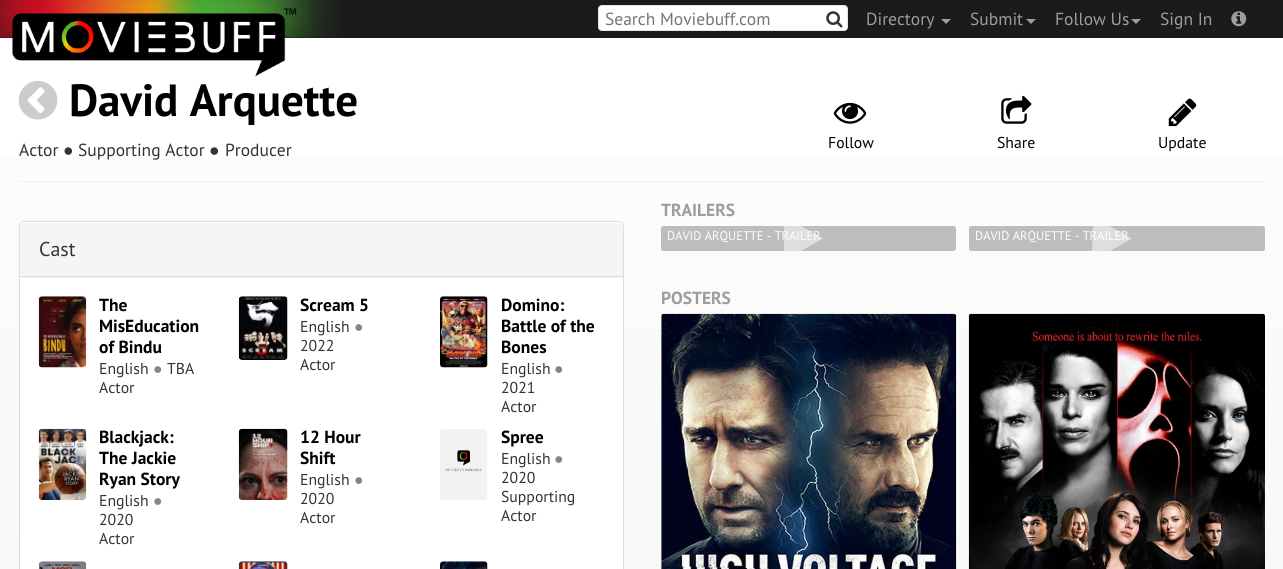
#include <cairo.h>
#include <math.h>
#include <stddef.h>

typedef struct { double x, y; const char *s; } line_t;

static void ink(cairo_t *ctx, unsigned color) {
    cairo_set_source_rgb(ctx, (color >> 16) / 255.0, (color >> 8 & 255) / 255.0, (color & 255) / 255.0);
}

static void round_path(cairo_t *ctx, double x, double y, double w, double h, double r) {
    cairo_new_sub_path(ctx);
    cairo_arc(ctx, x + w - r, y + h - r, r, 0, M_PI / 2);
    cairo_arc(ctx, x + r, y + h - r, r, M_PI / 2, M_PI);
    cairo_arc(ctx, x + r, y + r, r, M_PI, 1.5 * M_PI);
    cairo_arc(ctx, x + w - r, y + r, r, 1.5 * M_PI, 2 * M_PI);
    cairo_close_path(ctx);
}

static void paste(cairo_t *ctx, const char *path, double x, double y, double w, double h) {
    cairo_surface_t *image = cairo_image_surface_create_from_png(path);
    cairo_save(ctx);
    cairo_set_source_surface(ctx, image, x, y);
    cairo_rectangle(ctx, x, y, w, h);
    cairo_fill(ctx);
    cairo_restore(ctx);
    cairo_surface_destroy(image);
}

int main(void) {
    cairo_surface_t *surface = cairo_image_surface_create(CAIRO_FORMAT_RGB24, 1283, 569);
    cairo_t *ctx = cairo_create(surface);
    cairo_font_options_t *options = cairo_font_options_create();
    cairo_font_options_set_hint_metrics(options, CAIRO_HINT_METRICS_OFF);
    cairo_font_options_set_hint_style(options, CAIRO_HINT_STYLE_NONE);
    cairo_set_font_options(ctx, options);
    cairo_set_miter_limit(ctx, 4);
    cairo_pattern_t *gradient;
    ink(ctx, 0xFFFFFF);
    cairo_paint(ctx);
    gradient = cairo_pattern_create_linear(642, 0, 642, 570);
    cairo_pattern_add_color_stop_rgba(gradient, 0, 1, 1, 1, 1);
    cairo_pattern_add_color_stop_rgba(gradient, 0.33, 0.988, 0.988, 0.988, 1);
    cairo_pattern_add_color_stop_rgba(gradient, 0.67, 0.98, 0.98, 0.98, 1);
    cairo_pattern_add_color_stop_rgba(gradient, 1, 0.973, 0.973, 0.973, 1);
    cairo_set_source(ctx, gradient);
    cairo_pattern_destroy(gradient);
    cairo_rectangle(ctx, 0, 157, 1283, 412);
    cairo_fill(ctx);
    ink(ctx, 0x1B1B1B);
    cairo_rectangle(ctx, 0, 0, 1283, 38);
    cairo_fill(ctx);
    paste(ctx, "media/1.png", 0, 0, 341, 38);
    paste(ctx, "media/2.png", 12, 8, 285, 69);
    ink(ctx, 0xFFFFFF);
    round_path(ctx, 598, 5, 250, 26, 4);
    cairo_fill(ctx);
    round_path(ctx, 598.5, 5.5, 249, 25, 3.5);
    cairo_set_source_rgba(ctx, 0, 0, 0, 0.1);
    cairo_set_line_width(ctx, 1);
    cairo_stroke(ctx);
    cairo_select_font_face(ctx, "PT Sans", CAIRO_FONT_SLANT_NORMAL, CAIRO_FONT_WEIGHT_NORMAL);
    cairo_set_font_size(ctx, 17.5);
    ink(ctx, 0x757575);
    cairo_move_to(ctx, 605, 25);
    cairo_show_text(ctx, "Search Moviebuff.com");
    paste(ctx, "media/3.png", 826, 11, 17, 17);
    ink(ctx, 0x9D9D9D);
    cairo_move_to(ctx, 866, 25);
    cairo_show_text(ctx, "Directory");
    cairo_new_path(ctx);
    cairo_move_to(ctx, 941, 19);
    cairo_line_to(ctx, 951, 19);
    cairo_line_to(ctx, 946, 24);
    cairo_close_path(ctx);
    cairo_fill(ctx);
    cairo_move_to(ctx, 970, 25);
    cairo_show_text(ctx, "Submit");
    cairo_new_path(ctx);
    cairo_move_to(ctx, 1026, 19);
    cairo_line_to(ctx, 1036, 19);
    cairo_line_to(ctx, 1031, 24);
    cairo_close_path(ctx);
    cairo_fill(ctx);
    cairo_move_to(ctx, 1055, 25);
    cairo_show_text(ctx, "Follow Us");
    cairo_new_path(ctx);
    cairo_move_to(ctx, 1131, 19);
    cairo_line_to(ctx, 1141, 19);
    cairo_line_to(ctx, 1136, 24);
    cairo_close_path(ctx);
    cairo_fill(ctx);
    cairo_move_to(ctx, 1160, 25);
    cairo_show_text(ctx, "Sign In");
    paste(ctx, "media/4.png", 1231, 11, 16, 16);
    paste(ctx, "media/5.png", 18, 81, 40, 39);
    cairo_select_font_face(ctx, "PT Sans", CAIRO_FONT_SLANT_NORMAL, CAIRO_FONT_WEIGHT_BOLD);
    cairo_set_font_size(ctx, 45);
    ink(ctx, 0x000000);
    cairo_move_to(ctx, 69, 116);
    cairo_show_text(ctx, "David Arquette");
    cairo_select_font_face(ctx, "PT Sans", CAIRO_FONT_SLANT_NORMAL, CAIRO_FONT_WEIGHT_NORMAL);
    cairo_set_font_size(ctx, 17.5);
    ink(ctx, 0x333333);
    cairo_move_to(ctx, 19, 156);
    cairo_show_text(ctx, "Actor");
    cairo_select_font_face(ctx, "Liberation Serif", CAIRO_FONT_SLANT_NORMAL, CAIRO_FONT_WEIGHT_NORMAL);
    cairo_move_to(ctx, 63, 156);
    cairo_show_text(ctx, "●");
    cairo_select_font_face(ctx, "PT Sans", CAIRO_FONT_SLANT_NORMAL, CAIRO_FONT_WEIGHT_NORMAL);
    cairo_move_to(ctx, 78, 156);
    cairo_show_text(ctx, "Supporting Actor");
    cairo_select_font_face(ctx, "Liberation Serif", CAIRO_FONT_SLANT_NORMAL, CAIRO_FONT_WEIGHT_NORMAL);
    cairo_move_to(ctx, 209, 156);
    cairo_show_text(ctx, "●");
    cairo_select_font_face(ctx, "PT Sans", CAIRO_FONT_SLANT_NORMAL, CAIRO_FONT_WEIGHT_NORMAL);
    cairo_move_to(ctx, 225, 156);
    cairo_show_text(ctx, "Producer");
    paste(ctx, "media/6.png", 833, 102, 34, 22);
    cairo_set_font_size(ctx, 15.75);
    ink(ctx, 0x000000);
    cairo_move_to(ctx, 828, 148);
    cairo_show_text(ctx, "Follow");
    paste(ctx, "media/7.png", 1001, 95, 31, 29);
    cairo_move_to(ctx, 997, 148);
    cairo_show_text(ctx, "Share");
    paste(ctx, "media/8.png", 1168, 98, 29, 29);
    cairo_move_to(ctx, 1158, 148);
    cairo_show_text(ctx, "Update");
    ink(ctx, 0xEEEEEE);
    cairo_rectangle(ctx, 19, 181, 1246, 1);
    cairo_fill(ctx);
    ink(ctx, 0xFFFFFF);
    round_path(ctx, 19.5, 221.5, 604, 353, 4.5);
    cairo_fill_preserve(ctx);
    ink(ctx, 0xDDDDDD);
    cairo_stroke(ctx);
    ink(ctx, 0xF5F5F5);
    cairo_new_path(ctx);
    cairo_move_to(ctx, 24, 223);
    cairo_line_to(ctx, 619, 223);
    cairo_curve_to(ctx, 621, 223, 623, 225, 623, 227);
    cairo_line_to(ctx, 623, 278);
    cairo_line_to(ctx, 20, 278);
    cairo_line_to(ctx, 20, 227);
    cairo_curve_to(ctx, 20, 225, 22, 223, 24, 223);
    cairo_close_path(ctx);
    cairo_fill(ctx);
    ink(ctx, 0xDDDDDD);
    cairo_rectangle(ctx, 20, 276, 603, 1);
    cairo_fill(ctx);
    cairo_set_font_size(ctx, 20);
    ink(ctx, 0x333333);
    cairo_move_to(ctx, 39, 256);
    cairo_show_text(ctx, "Cast");
    paste(ctx, "media/9.png", 38, 296, 49, 72);
    cairo_select_font_face(ctx, "PT Sans", CAIRO_FONT_SLANT_NORMAL, CAIRO_FONT_WEIGHT_BOLD);
    cairo_set_font_size(ctx, 17.5);
    ink(ctx, 0x000000);
    {
        static const line_t items[] = {
            {99, 311, "The"},
            {99, 332, "MisEducation"},
            {99, 353, "of Bindu"},
        };
        for (size_t i = 0; i < sizeof items / sizeof *items; i++) {
            cairo_move_to(ctx, items[i].x, items[i].y);
            cairo_show_text(ctx, items[i].s);
        }
    }
    cairo_select_font_face(ctx, "PT Sans", CAIRO_FONT_SLANT_NORMAL, CAIRO_FONT_WEIGHT_NORMAL);
    cairo_set_font_size(ctx, 15.75);
    ink(ctx, 0x333333);
    cairo_move_to(ctx, 99, 374);
    cairo_show_text(ctx, "English");
    cairo_select_font_face(ctx, "Liberation Serif", CAIRO_FONT_SLANT_NORMAL, CAIRO_FONT_WEIGHT_NORMAL);
    ink(ctx, 0x858585);
    cairo_move_to(ctx, 153, 374);
    cairo_show_text(ctx, "●");
    cairo_select_font_face(ctx, "PT Sans", CAIRO_FONT_SLANT_NORMAL, CAIRO_FONT_WEIGHT_NORMAL);
    ink(ctx, 0x333333);
    cairo_move_to(ctx, 167, 374);
    cairo_show_text(ctx, "TBA");
    cairo_move_to(ctx, 99, 393);
    cairo_show_text(ctx, "Actor");
    paste(ctx, "media/10.png", 238, 296, 50, 64);
    cairo_select_font_face(ctx, "PT Sans", CAIRO_FONT_SLANT_NORMAL, CAIRO_FONT_WEIGHT_BOLD);
    cairo_set_font_size(ctx, 17.5);
    ink(ctx, 0x000000);
    cairo_move_to(ctx, 300, 311);
    cairo_show_text(ctx, "Scream 5");
    cairo_select_font_face(ctx, "PT Sans", CAIRO_FONT_SLANT_NORMAL, CAIRO_FONT_WEIGHT_NORMAL);
    cairo_set_font_size(ctx, 15.75);
    ink(ctx, 0x333333);
    cairo_move_to(ctx, 300, 332);
    cairo_show_text(ctx, "English");
    cairo_select_font_face(ctx, "Liberation Serif", CAIRO_FONT_SLANT_NORMAL, CAIRO_FONT_WEIGHT_NORMAL);
    ink(ctx, 0x858585);
    cairo_move_to(ctx, 354, 332);
    cairo_show_text(ctx, "●");
    cairo_select_font_face(ctx, "PT Sans", CAIRO_FONT_SLANT_NORMAL, CAIRO_FONT_WEIGHT_NORMAL);
    ink(ctx, 0x333333);
    cairo_move_to(ctx, 300, 351);
    cairo_show_text(ctx, "2022");
    cairo_move_to(ctx, 300, 370);
    cairo_show_text(ctx, "Actor");
    paste(ctx, "media/11.png", 440, 296, 48, 72);
    cairo_select_font_face(ctx, "PT Sans", CAIRO_FONT_SLANT_NORMAL, CAIRO_FONT_WEIGHT_BOLD);
    cairo_set_font_size(ctx, 17.5);
    ink(ctx, 0x000000);
    {
        static const line_t items[] = {
            {501, 311, "Domino:"},
            {501, 332, "Battle of the"},
            {501, 353, "Bones"},
        };
        for (size_t i = 0; i < sizeof items / sizeof *items; i++) {
            cairo_move_to(ctx, items[i].x, items[i].y);
            cairo_show_text(ctx, items[i].s);
        }
    }
    cairo_select_font_face(ctx, "PT Sans", CAIRO_FONT_SLANT_NORMAL, CAIRO_FONT_WEIGHT_NORMAL);
    cairo_set_font_size(ctx, 15.75);
    ink(ctx, 0x333333);
    cairo_move_to(ctx, 501, 374);
    cairo_show_text(ctx, "English");
    cairo_select_font_face(ctx, "Liberation Serif", CAIRO_FONT_SLANT_NORMAL, CAIRO_FONT_WEIGHT_NORMAL);
    ink(ctx, 0x858585);
    cairo_move_to(ctx, 554, 374);
    cairo_show_text(ctx, "●");
    cairo_select_font_face(ctx, "PT Sans", CAIRO_FONT_SLANT_NORMAL, CAIRO_FONT_WEIGHT_NORMAL);
    ink(ctx, 0x333333);
    cairo_move_to(ctx, 501, 393);
    cairo_show_text(ctx, "2021");
    cairo_move_to(ctx, 501, 412);
    cairo_show_text(ctx, "Actor");
    paste(ctx, "media/12.png", 38, 428, 49, 72);
    cairo_select_font_face(ctx, "PT Sans", CAIRO_FONT_SLANT_NORMAL, CAIRO_FONT_WEIGHT_BOLD);
    cairo_set_font_size(ctx, 17.5);
    ink(ctx, 0x000000);
    {
        static const line_t items[] = {
            {99, 443, "Blackjack:"},
            {99, 464, "The Jackie"},
            {99, 485, "Ryan Story"},
        };
        for (size_t i = 0; i < sizeof items / sizeof *items; i++) {
            cairo_move_to(ctx, items[i].x, items[i].y);
            cairo_show_text(ctx, items[i].s);
        }
    }
    cairo_select_font_face(ctx, "PT Sans", CAIRO_FONT_SLANT_NORMAL, CAIRO_FONT_WEIGHT_NORMAL);
    cairo_set_font_size(ctx, 15.75);
    ink(ctx, 0x333333);
    cairo_move_to(ctx, 99, 506);
    cairo_show_text(ctx, "English");
    cairo_select_font_face(ctx, "Liberation Serif", CAIRO_FONT_SLANT_NORMAL, CAIRO_FONT_WEIGHT_NORMAL);
    ink(ctx, 0x858585);
    cairo_move_to(ctx, 153, 506);
    cairo_show_text(ctx, "●");
    cairo_select_font_face(ctx, "PT Sans", CAIRO_FONT_SLANT_NORMAL, CAIRO_FONT_WEIGHT_NORMAL);
    ink(ctx, 0x333333);
    cairo_move_to(ctx, 99, 525);
    cairo_show_text(ctx, "2020");
    cairo_move_to(ctx, 99, 544);
    cairo_show_text(ctx, "Actor");
    paste(ctx, "media/13.png", 238, 428, 50, 72);
    cairo_select_font_face(ctx, "PT Sans", CAIRO_FONT_SLANT_NORMAL, CAIRO_FONT_WEIGHT_BOLD);
    cairo_set_font_size(ctx, 17.5);
    ink(ctx, 0x000000);
    cairo_move_to(ctx, 300, 443);
    cairo_show_text(ctx, "12 Hour");
    cairo_move_to(ctx, 300, 464);
    cairo_show_text(ctx, "Shift");
    cairo_select_font_face(ctx, "PT Sans", CAIRO_FONT_SLANT_NORMAL, CAIRO_FONT_WEIGHT_NORMAL);
    cairo_set_font_size(ctx, 15.75);
    ink(ctx, 0x333333);
    cairo_move_to(ctx, 300, 485);
    cairo_show_text(ctx, "English");
    cairo_select_font_face(ctx, "Liberation Serif", CAIRO_FONT_SLANT_NORMAL, CAIRO_FONT_WEIGHT_NORMAL);
    ink(ctx, 0x858585);
    cairo_move_to(ctx, 354, 485);
    cairo_show_text(ctx, "●");
    cairo_select_font_face(ctx, "PT Sans", CAIRO_FONT_SLANT_NORMAL, CAIRO_FONT_WEIGHT_NORMAL);
    ink(ctx, 0x333333);
    cairo_move_to(ctx, 300, 504);
    cairo_show_text(ctx, "2020");
    cairo_move_to(ctx, 300, 523);
    cairo_show_text(ctx, "Actor");
    paste(ctx, "media/14.png", 440, 429, 47, 71);
    cairo_select_font_face(ctx, "PT Sans", CAIRO_FONT_SLANT_NORMAL, CAIRO_FONT_WEIGHT_BOLD);
    cairo_set_font_size(ctx, 17.5);
    ink(ctx, 0x000000);
    cairo_move_to(ctx, 501, 443);
    cairo_show_text(ctx, "Spree");
    cairo_select_font_face(ctx, "PT Sans", CAIRO_FONT_SLANT_NORMAL, CAIRO_FONT_WEIGHT_NORMAL);
    cairo_set_font_size(ctx, 15.75);
    ink(ctx, 0x333333);
    cairo_move_to(ctx, 501, 464);
    cairo_show_text(ctx, "English");
    cairo_select_font_face(ctx, "Liberation Serif", CAIRO_FONT_SLANT_NORMAL, CAIRO_FONT_WEIGHT_NORMAL);
    ink(ctx, 0x858585);
    cairo_move_to(ctx, 554, 464);
    cairo_show_text(ctx, "●");
    cairo_select_font_face(ctx, "PT Sans", CAIRO_FONT_SLANT_NORMAL, CAIRO_FONT_WEIGHT_NORMAL);
    ink(ctx, 0x333333);
    {
        static const line_t items[] = {
            {501, 483, "2020"},
            {501, 502, "Supporting"},
            {501, 521, "Actor"},
        };
        for (size_t i = 0; i < sizeof items / sizeof *items; i++) {
            cairo_move_to(ctx, items[i].x, items[i].y);
            cairo_show_text(ctx, items[i].s);
        }
    }
    paste(ctx, "media/15.png", 38, 561, 49, 8);
    paste(ctx, "media/16.png", 238, 561, 50, 8);
    paste(ctx, "media/17.png", 440, 561, 48, 8);
    cairo_select_font_face(ctx, "PT Sans", CAIRO_FONT_SLANT_NORMAL, CAIRO_FONT_WEIGHT_BOLD);
    cairo_set_font_size(ctx, 17.5);
    ink(ctx, 0x9D9D9D);
    cairo_move_to(ctx, 661, 216);
    cairo_show_text(ctx, "TRAILERS");
    ink(ctx, 0xBDBDBD);
    round_path(ctx, 661, 226, 295, 25, 2.5);
    cairo_fill(ctx);
    cairo_select_font_face(ctx, "PT Sans", CAIRO_FONT_SLANT_NORMAL, CAIRO_FONT_WEIGHT_NORMAL);
    cairo_set_font_size(ctx, 12.5);
    ink(ctx, 0xFDFDFD);
    cairo_move_to(ctx, 667, 240);
    cairo_show_text(ctx, "DAVID ARQUETTE - TRAILER");
    cairo_set_source_rgba(ctx, 1, 1, 1, 0.5);
    cairo_new_path(ctx);
    cairo_move_to(ctx, 822, 239);
    cairo_line_to(ctx, 801, 251);
    cairo_line_to(ctx, 784, 251);
    cairo_line_to(ctx, 784, 226);
    cairo_line_to(ctx, 801, 226);
    cairo_line_to(ctx, 822, 238);
    cairo_curve_to(ctx, 823, 238, 823, 239, 822, 239);
    cairo_close_path(ctx);
    cairo_fill(ctx);
    ink(ctx, 0xBDBDBD);
    round_path(ctx, 969, 226, 296, 25, 2.5);
    cairo_fill(ctx);
    ink(ctx, 0xFDFDFD);
    cairo_move_to(ctx, 975, 240);
    cairo_show_text(ctx, "DAVID ARQUETTE - TRAILER");
    cairo_set_source_rgba(ctx, 1, 1, 1, 0.5);
    cairo_new_path(ctx);
    cairo_move_to(ctx, 1131, 239);
    cairo_line_to(ctx, 1110, 251);
    cairo_line_to(ctx, 1092, 251);
    cairo_line_to(ctx, 1093, 226);
    cairo_line_to(ctx, 1109.5, 226);
    cairo_line_to(ctx, 1131, 238);
    cairo_curve_to(ctx, 1132, 238, 1132, 239, 1131, 239);
    cairo_close_path(ctx);
    cairo_fill(ctx);
    cairo_select_font_face(ctx, "PT Sans", CAIRO_FONT_SLANT_NORMAL, CAIRO_FONT_WEIGHT_BOLD);
    cairo_set_font_size(ctx, 17.5);
    ink(ctx, 0x9D9D9D);
    cairo_move_to(ctx, 661, 304);
    cairo_show_text(ctx, "POSTERS");
    paste(ctx, "media/18.png", 661, 313, 296, 256);
    paste(ctx, "media/19.png", 968, 313, 297, 256);
    cairo_surface_write_to_png(surface, "image.png");
    cairo_font_options_destroy(options);
    cairo_destroy(ctx);
    cairo_surface_destroy(surface);
    return 0;
}
